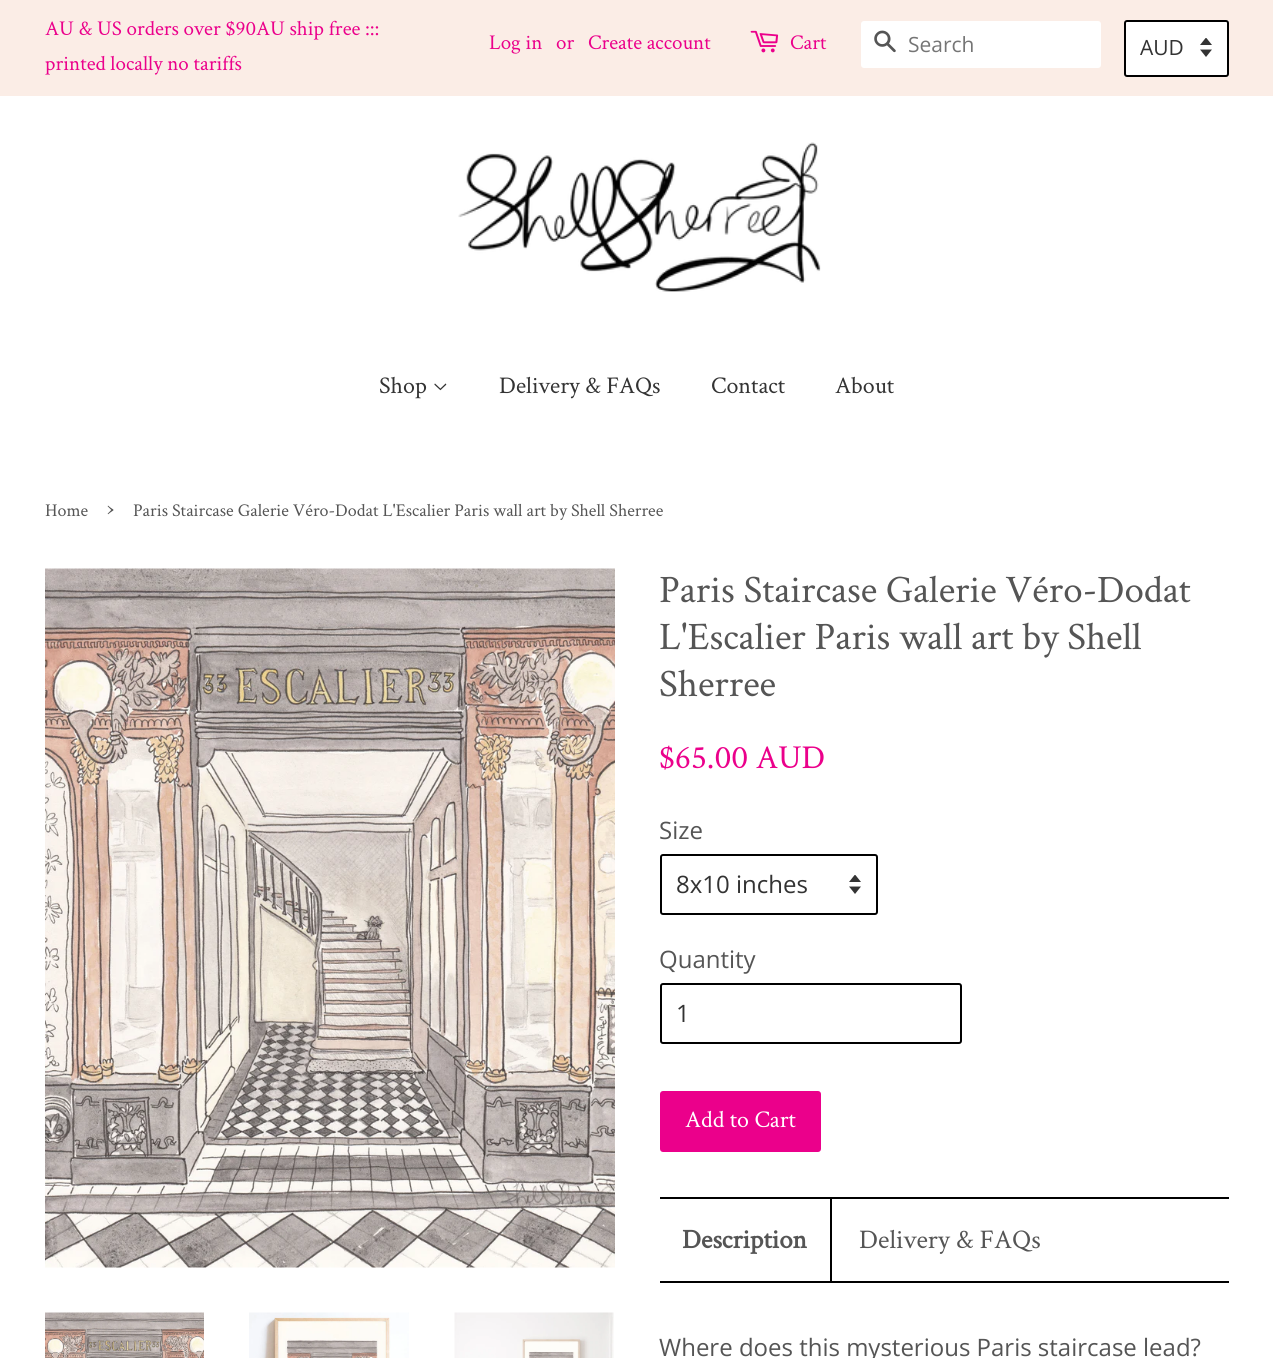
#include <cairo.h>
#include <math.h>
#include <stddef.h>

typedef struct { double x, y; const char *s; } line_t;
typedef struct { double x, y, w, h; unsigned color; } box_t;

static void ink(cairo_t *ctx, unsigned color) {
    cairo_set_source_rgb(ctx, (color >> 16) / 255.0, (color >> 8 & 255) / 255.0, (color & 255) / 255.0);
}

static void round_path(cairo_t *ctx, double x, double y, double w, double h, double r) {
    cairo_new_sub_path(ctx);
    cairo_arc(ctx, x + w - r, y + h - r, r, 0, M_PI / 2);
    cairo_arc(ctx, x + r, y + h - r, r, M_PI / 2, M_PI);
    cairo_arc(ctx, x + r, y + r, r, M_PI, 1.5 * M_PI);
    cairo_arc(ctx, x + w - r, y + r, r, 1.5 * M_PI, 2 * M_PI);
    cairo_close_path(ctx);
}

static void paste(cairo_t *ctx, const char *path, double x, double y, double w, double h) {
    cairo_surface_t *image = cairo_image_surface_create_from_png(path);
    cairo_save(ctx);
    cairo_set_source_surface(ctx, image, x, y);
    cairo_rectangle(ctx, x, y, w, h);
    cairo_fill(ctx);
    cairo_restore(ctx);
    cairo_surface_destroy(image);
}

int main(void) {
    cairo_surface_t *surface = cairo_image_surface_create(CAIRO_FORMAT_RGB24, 1273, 1358);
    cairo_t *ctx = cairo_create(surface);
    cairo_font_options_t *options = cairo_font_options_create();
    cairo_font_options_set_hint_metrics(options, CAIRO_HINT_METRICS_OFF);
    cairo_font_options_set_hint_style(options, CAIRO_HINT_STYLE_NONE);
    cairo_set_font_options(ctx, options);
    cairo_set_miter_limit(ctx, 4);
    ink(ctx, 0xFFFFFF);
    cairo_paint(ctx);
    ink(ctx, 0xFBEDE6);
    cairo_rectangle(ctx, 0, 0, 1273, 96);
    cairo_fill(ctx);
    cairo_select_font_face(ctx, "Crimson Text", CAIRO_FONT_SLANT_NORMAL, CAIRO_FONT_WEIGHT_NORMAL);
    cairo_set_font_size(ctx, 21);
    ink(ctx, 0xEB008B);
    {
        static const line_t items[] = {
            {45, 35, "AU & US orders over $90AU ship free :::"},
            {45, 70, "printed locally no tariffs"},
            {489, 49, "Log in"},
            {556, 49, "or"},
            {588, 49, "Create account"},
        };
        for (size_t i = 0; i < sizeof items / sizeof *items; i++) {
            cairo_move_to(ctx, items[i].x, items[i].y);
            cairo_show_text(ctx, items[i].s);
        }
    }
    paste(ctx, "media/1.png", 750, 30, 29, 23);
    cairo_move_to(ctx, 790, 49);
    cairo_show_text(ctx, "Cart");
    ink(ctx, 0xFFFFFF);
    round_path(ctx, 861, 21, 240, 47, 3);
    cairo_fill(ctx);
    paste(ctx, "media/2.png", 874, 30, 22, 23);
    cairo_select_font_face(ctx, "Open Sans", CAIRO_FONT_SLANT_NORMAL, CAIRO_FONT_WEIGHT_NORMAL);
    ink(ctx, 0x757575);
    cairo_move_to(ctx, 908, 52);
    cairo_show_text(ctx, "Search");
    ink(ctx, 0xFFFFFF);
    round_path(ctx, 1124, 20, 105, 57, 3);
    cairo_fill(ctx);
    paste(ctx, "media/3.png", 1200, 38, 12, 19);
    round_path(ctx, 1125, 21, 103, 55, 2);
    ink(ctx, 0x000000);
    cairo_stroke(ctx);
    ink(ctx, 0x333333);
    cairo_move_to(ctx, 1140, 55);
    cairo_show_text(ctx, "AUD");
    paste(ctx, "media/4.png", 458, 142, 363, 150);
    cairo_select_font_face(ctx, "Crimson Text", CAIRO_FONT_SLANT_NORMAL, CAIRO_FONT_WEIGHT_NORMAL);
    cairo_set_font_size(ctx, 24);
    cairo_move_to(ctx, 379, 393);
    cairo_show_text(ctx, "Shop");
    paste(ctx, "media/5.png", 434, 383, 13, 8);
    {
        static const line_t items[] = {
            {499, 393, "Delivery & FAQs"},
            {711, 393, "Contact"},
            {835, 393, "About"},
        };
        for (size_t i = 0; i < sizeof items / sizeof *items; i++) {
            cairo_move_to(ctx, items[i].x, items[i].y);
            cairo_show_text(ctx, items[i].s);
        }
    }
    cairo_set_font_size(ctx, 18);
    ink(ctx, 0x555555);
    cairo_move_to(ctx, 45, 516);
    cairo_show_text(ctx, "Home");
    cairo_set_font_size(ctx, 25);
    cairo_move_to(ctx, 107, 516);
    cairo_show_text(ctx, "›");
    cairo_set_font_size(ctx, 18);
    cairo_move_to(ctx, 133, 516);
    cairo_show_text(ctx, "Paris Staircase Galerie Véro-Dodat L'Escalier Paris wall art by Shell Sherree");
    paste(ctx, "media/6.png", 45, 568, 570, 700);
    paste(ctx, "media/7.png", 45, 1312, 159, 46);
    paste(ctx, "media/8.png", 249, 1312, 160, 46);
    paste(ctx, "media/9.png", 454, 1312, 160, 46);
    cairo_set_font_size(ctx, 39);
    {
        static const line_t items[] = {
            {659, 602, "Paris Staircase Galerie Véro-Dodat"},
            {659, 649, "L'Escalier Paris wall art by Shell"},
            {659, 696, "Sherree"},
        };
        for (size_t i = 0; i < sizeof items / sizeof *items; i++) {
            cairo_move_to(ctx, items[i].x, items[i].y);
            cairo_show_text(ctx, items[i].s);
        }
    }
    cairo_set_font_size(ctx, 33.5);
    ink(ctx, 0xEB008B);
    cairo_move_to(ctx, 659, 768);
    cairo_show_text(ctx, "$65.00 AUD");
    cairo_select_font_face(ctx, "Open Sans", CAIRO_FONT_SLANT_NORMAL, CAIRO_FONT_WEIGHT_NORMAL);
    cairo_set_font_size(ctx, 24);
    ink(ctx, 0x555555);
    cairo_move_to(ctx, 659, 839);
    cairo_show_text(ctx, "Size");
    paste(ctx, "media/3.png", 849, 875, 12, 19);
    round_path(ctx, 661, 855, 216, 59, 2);
    ink(ctx, 0x000000);
    cairo_stroke(ctx);
    ink(ctx, 0x333333);
    cairo_move_to(ctx, 676, 893);
    cairo_show_text(ctx, "8x10 inches");
    ink(ctx, 0x555555);
    cairo_move_to(ctx, 659, 968);
    cairo_show_text(ctx, "Quantity");
    round_path(ctx, 661, 984, 300, 59, 2);
    ink(ctx, 0x000000);
    cairo_stroke(ctx);
    ink(ctx, 0x333333);
    cairo_move_to(ctx, 676, 1022);
    cairo_show_text(ctx, "1");
    ink(ctx, 0xEB008B);
    round_path(ctx, 660, 1091, 161, 61, 3);
    cairo_fill(ctx);
    cairo_select_font_face(ctx, "Crimson Text", CAIRO_FONT_SLANT_NORMAL, CAIRO_FONT_WEIGHT_NORMAL);
    ink(ctx, 0xFFFFFF);
    cairo_move_to(ctx, 685, 1127);
    cairo_show_text(ctx, "Add to Cart");
    {
        static const box_t items[] = {
            {660, 1197, 569, 2, 0x000000},
            {660, 1281, 569, 2, 0x000000},
            {830, 1199, 2, 82, 0x000000},
        };
        for (size_t i = 0; i < sizeof items / sizeof *items; i++) {
            ink(ctx, items[i].color);
            cairo_rectangle(ctx, items[i].x, items[i].y, items[i].w, items[i].h);
            cairo_fill(ctx);
        }
    }
    cairo_select_font_face(ctx, "Crimson Text", CAIRO_FONT_SLANT_NORMAL, CAIRO_FONT_WEIGHT_BOLD);
    cairo_set_font_size(ctx, 27);
    ink(ctx, 0x555555);
    cairo_move_to(ctx, 682, 1248);
    cairo_show_text(ctx, "Description");
    cairo_select_font_face(ctx, "Crimson Text", CAIRO_FONT_SLANT_NORMAL, CAIRO_FONT_WEIGHT_NORMAL);
    cairo_move_to(ctx, 859, 1248);
    cairo_show_text(ctx, "Delivery & FAQs");
    cairo_select_font_face(ctx, "Open Sans", CAIRO_FONT_SLANT_NORMAL, CAIRO_FONT_WEIGHT_NORMAL);
    cairo_set_font_size(ctx, 24);
    cairo_move_to(ctx, 659, 1356);
    cairo_show_text(ctx, "Where does this mysterious Paris staircase lead?");
    cairo_surface_write_to_png(surface, "image.png");
    cairo_font_options_destroy(options);
    cairo_destroy(ctx);
    cairo_surface_destroy(surface);
    return 0;
}
